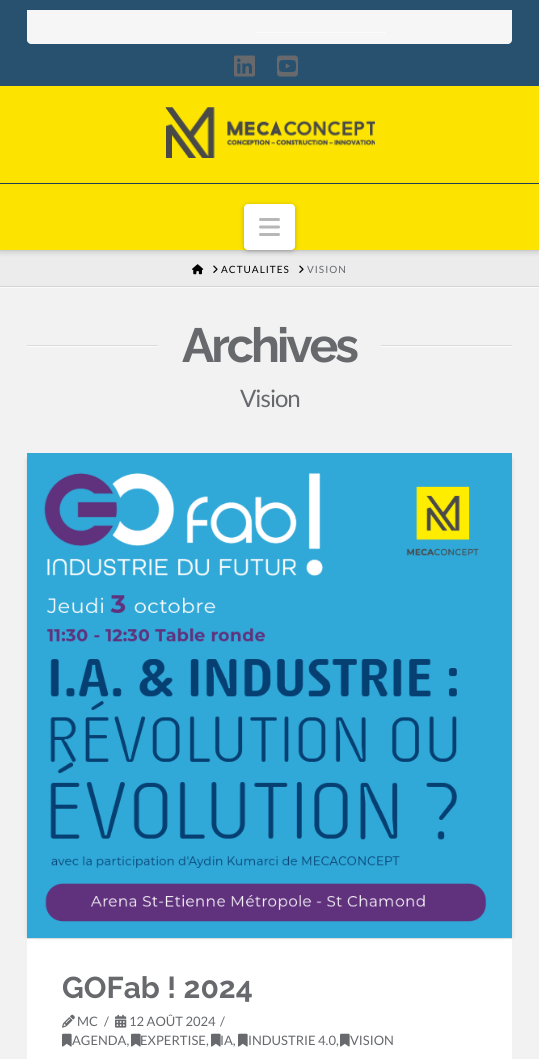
#include <cairo.h>
#include <math.h>
#include <stddef.h>


static void ink(cairo_t *ctx, unsigned color) {
    cairo_set_source_rgb(ctx, (color >> 16) / 255.0, (color >> 8 & 255) / 255.0, (color & 255) / 255.0);
}

static void write_spaced(cairo_t *ctx, double x, double y, const char *s, double letter, double word) {
    cairo_move_to(ctx, x, y);
    while (*s) {
        char ch[5] = {0};
        int n = 0;
        do ch[n++] = *s++; while ((*s & 0xC0) == 0x80);
        cairo_show_text(ctx, ch);
        cairo_rel_move_to(ctx, letter + word * (*ch == ' '), 0);
    }
}

static void round_path(cairo_t *ctx, double x, double y, double w, double h, double r) {
    cairo_new_sub_path(ctx);
    cairo_arc(ctx, x + w - r, y + h - r, r, 0, M_PI / 2);
    cairo_arc(ctx, x + r, y + h - r, r, M_PI / 2, M_PI);
    cairo_arc(ctx, x + r, y + r, r, M_PI, 1.5 * M_PI);
    cairo_arc(ctx, x + w - r, y + r, r, 1.5 * M_PI, 2 * M_PI);
    cairo_close_path(ctx);
}

static void blur_box(cairo_t *ctx, double x, double y, double w, double h, double r, double blur, double alpha) {
    cairo_push_group_with_content(ctx, CAIRO_CONTENT_ALPHA);
    cairo_set_operator(ctx, CAIRO_OPERATOR_SOURCE);
    for (int i = 15; i >= -15 && fmin(w, h) + blur * i / 3 > 0; i -= 2) {
        double e = blur * i / 6;
        cairo_set_source_rgba(ctx, 0, 0, 0, alpha * erfc((i - 1) / 8.5) / 2);
        round_path(ctx, x - e, y - e, w + 2 * e, h + 2 * e, fmax(0, fmin(r + e + blur * .6, fmin(w, h) / 2 + e)));
        cairo_fill(ctx);
    }
    cairo_pattern_t *soft = cairo_pop_group(ctx);
    cairo_mask(ctx, soft);
    cairo_pattern_destroy(soft);
}

static void paste(cairo_t *ctx, const char *path, double x, double y, double w, double h) {
    cairo_surface_t *image = cairo_image_surface_create_from_png(path);
    cairo_save(ctx);
    cairo_set_source_surface(ctx, image, x, y);
    cairo_rectangle(ctx, x, y, w, h);
    cairo_fill(ctx);
    cairo_restore(ctx);
    cairo_surface_destroy(image);
}

int main(void) {
    cairo_surface_t *surface = cairo_image_surface_create(CAIRO_FORMAT_RGB24, 539, 1059);
    cairo_t *ctx = cairo_create(surface);
    cairo_font_options_t *options = cairo_font_options_create();
    cairo_font_options_set_hint_metrics(options, CAIRO_HINT_METRICS_OFF);
    cairo_font_options_set_hint_style(options, CAIRO_HINT_STYLE_NONE);
    cairo_set_font_options(ctx, options);
    cairo_set_miter_limit(ctx, 4);
    ink(ctx, 0xF2F2F2);
    cairo_paint(ctx);
    ink(ctx, 0x28516F);
    cairo_rectangle(ctx, 0, 0, 539, 86);
    cairo_fill(ctx);
    ink(ctx, 0xF6F6F6);
    cairo_new_path(ctx);
    cairo_move_to(ctx, 27, 10);
    cairo_line_to(ctx, 512, 10);
    cairo_line_to(ctx, 512, 40);
    cairo_curve_to(ctx, 512, 42, 510, 44, 508, 44);
    cairo_line_to(ctx, 31, 44);
    cairo_curve_to(ctx, 29, 44, 27, 42, 27, 40);
    cairo_close_path(ctx);
    cairo_fill(ctx);
    cairo_new_path(ctx);
    cairo_move_to(ctx, 254, 32.5);
    cairo_line_to(ctx, 385, 32.5);
    ink(ctx, 0xFFFFFF);
    cairo_set_line_width(ctx, 1);
    cairo_set_dash(ctx, (double[]){1, 1}, 2, 0);
    cairo_stroke(ctx);
    paste(ctx, "media/1.png", 234, 55, 21, 22);
    paste(ctx, "media/2.png", 277, 55, 21, 22);
    ink(ctx, 0xFCE400);
    cairo_rectangle(ctx, 0, 86, 539, 97);
    cairo_fill(ctx);
    ink(ctx, 0x204159);
    cairo_rectangle(ctx, 0, 183, 539, 1);
    cairo_fill(ctx);
    paste(ctx, "media/3.png", 165, 107, 210, 51);
    ink(ctx, 0xECECEC);
    cairo_rectangle(ctx, 0, 251, 539, 35);
    cairo_fill(ctx);
    ink(ctx, 0x000000);
    blur_box(ctx, 0, 186, 539, 67, 0, 2.5, 0.13);
    ink(ctx, 0xFCE400);
    cairo_rectangle(ctx, 0, 184, 539, 66);
    cairo_fill(ctx);
    ink(ctx, 0xCCCCCC);
    cairo_rectangle(ctx, 0, 250, 539, 1);
    cairo_fill(ctx);
    ink(ctx, 0x000000);
    blur_box(ctx, 244, 205, 51, 46, 4, 2.5, 0.25);
    ink(ctx, 0xFFFFFF);
    round_path(ctx, 244, 204, 51, 46, 4);
    cairo_fill(ctx);
    paste(ctx, "media/4.png", 259, 218, 21, 18);
    ink(ctx, 0xFBFBFB);
    cairo_rectangle(ctx, 0, 287, 539, 1);
    cairo_fill(ctx);
    ink(ctx, 0xD4D4D4);
    cairo_rectangle(ctx, 0, 286, 539, 1);
    cairo_fill(ctx);
    paste(ctx, "media/5.png", 192, 264, 12, 11);
    paste(ctx, "media/6.png", 213, 265, 5, 8);
    cairo_select_font_face(ctx, "Lato", CAIRO_FONT_SLANT_NORMAL, CAIRO_FONT_WEIGHT_NORMAL);
    cairo_set_font_size(ctx, 10);
    ink(ctx, 0x000000);
    write_spaced(ctx, 221, 273, "ACTUALITES", 1, 0);
    paste(ctx, "media/6.png", 299, 265, 5, 8);
    ink(ctx, 0x67696D);
    write_spaced(ctx, 307, 273, "VISION", 1, 0);
    ink(ctx, 0xFCFCFC);
    cairo_rectangle(ctx, 27, 346, 131, 1);
    cairo_fill(ctx);
    ink(ctx, 0xDADADA);
    cairo_rectangle(ctx, 27, 345, 131, 1);
    cairo_fill(ctx);
    cairo_select_font_face(ctx, "Raleway", CAIRO_FONT_SLANT_NORMAL, CAIRO_FONT_WEIGHT_BOLD);
    cairo_set_font_size(ctx, 48);
    ink(ctx, 0x67696D);
    write_spaced(ctx, 182, 362, "Archives", -3, 0);
    ink(ctx, 0xFCFCFC);
    cairo_rectangle(ctx, 381, 346, 131, 1);
    cairo_fill(ctx);
    ink(ctx, 0xDADADA);
    cairo_rectangle(ctx, 381, 345, 131, 1);
    cairo_fill(ctx);
    cairo_select_font_face(ctx, "Lato", CAIRO_FONT_SLANT_NORMAL, CAIRO_FONT_WEIGHT_NORMAL);
    cairo_set_font_size(ctx, 24);
    ink(ctx, 0x67696D);
    write_spaced(ctx, 240, 407, "Vision", -1, 0);
    ink(ctx, 0xFFFFFF);
    cairo_rectangle(ctx, 27, 939, 485, 120);
    cairo_fill(ctx);
    ink(ctx, 0x000000);
    blur_box(ctx, 27, 459, 477, 478, 0, 2, 0.13);
    blur_box(ctx, 35, 459, 477, 478, 0, 2, 0.13);
    ink(ctx, 0xDDDDDD);
    cairo_rectangle(ctx, 27, 938, 485, 1);
    cairo_fill(ctx);
    paste(ctx, "media/7.png", 27, 453, 485, 485);
    cairo_select_font_face(ctx, "Raleway", CAIRO_FONT_SLANT_NORMAL, CAIRO_FONT_WEIGHT_BOLD);
    cairo_set_font_size(ctx, 30);
    ink(ctx, 0x67696D);
    cairo_move_to(ctx, 62, 998);
    cairo_show_text(ctx, "GOFab ! 2024");
    paste(ctx, "media/8.png", 62, 1014, 13, 14);
    cairo_select_font_face(ctx, "Lato", CAIRO_FONT_SLANT_NORMAL, CAIRO_FONT_WEIGHT_NORMAL);
    cairo_set_font_size(ctx, 13);
    cairo_move_to(ctx, 77, 1026);
    cairo_show_text(ctx, "MC");
    cairo_move_to(ctx, 104, 1026);
    cairo_show_text(ctx, "/");
    paste(ctx, "media/9.png", 115, 1014, 12, 14);
    cairo_move_to(ctx, 129, 1026);
    cairo_show_text(ctx, "12 AOÛT 2024");
    cairo_move_to(ctx, 220, 1026);
    cairo_show_text(ctx, "/");
    paste(ctx, "media/10.png", 62, 1033, 10, 14);
    cairo_move_to(ctx, 72, 1045);
    cairo_show_text(ctx, "AGENDA,");
    paste(ctx, "media/10.png", 131, 1033, 10, 14);
    cairo_move_to(ctx, 140, 1045);
    cairo_show_text(ctx, "EXPERTISE,");
    paste(ctx, "media/10.png", 211, 1033, 10, 14);
    cairo_move_to(ctx, 220, 1045);
    cairo_show_text(ctx, "IA,");
    paste(ctx, "media/10.png", 238, 1033, 10, 14);
    cairo_move_to(ctx, 248, 1045);
    cairo_show_text(ctx, "INDUSTRIE 4.0,");
    paste(ctx, "media/10.png", 340, 1033, 10, 14);
    cairo_move_to(ctx, 350, 1045);
    cairo_show_text(ctx, "VISION");
    cairo_surface_write_to_png(surface, "image.png");
    cairo_font_options_destroy(options);
    cairo_destroy(ctx);
    cairo_surface_destroy(surface);
    return 0;
}
